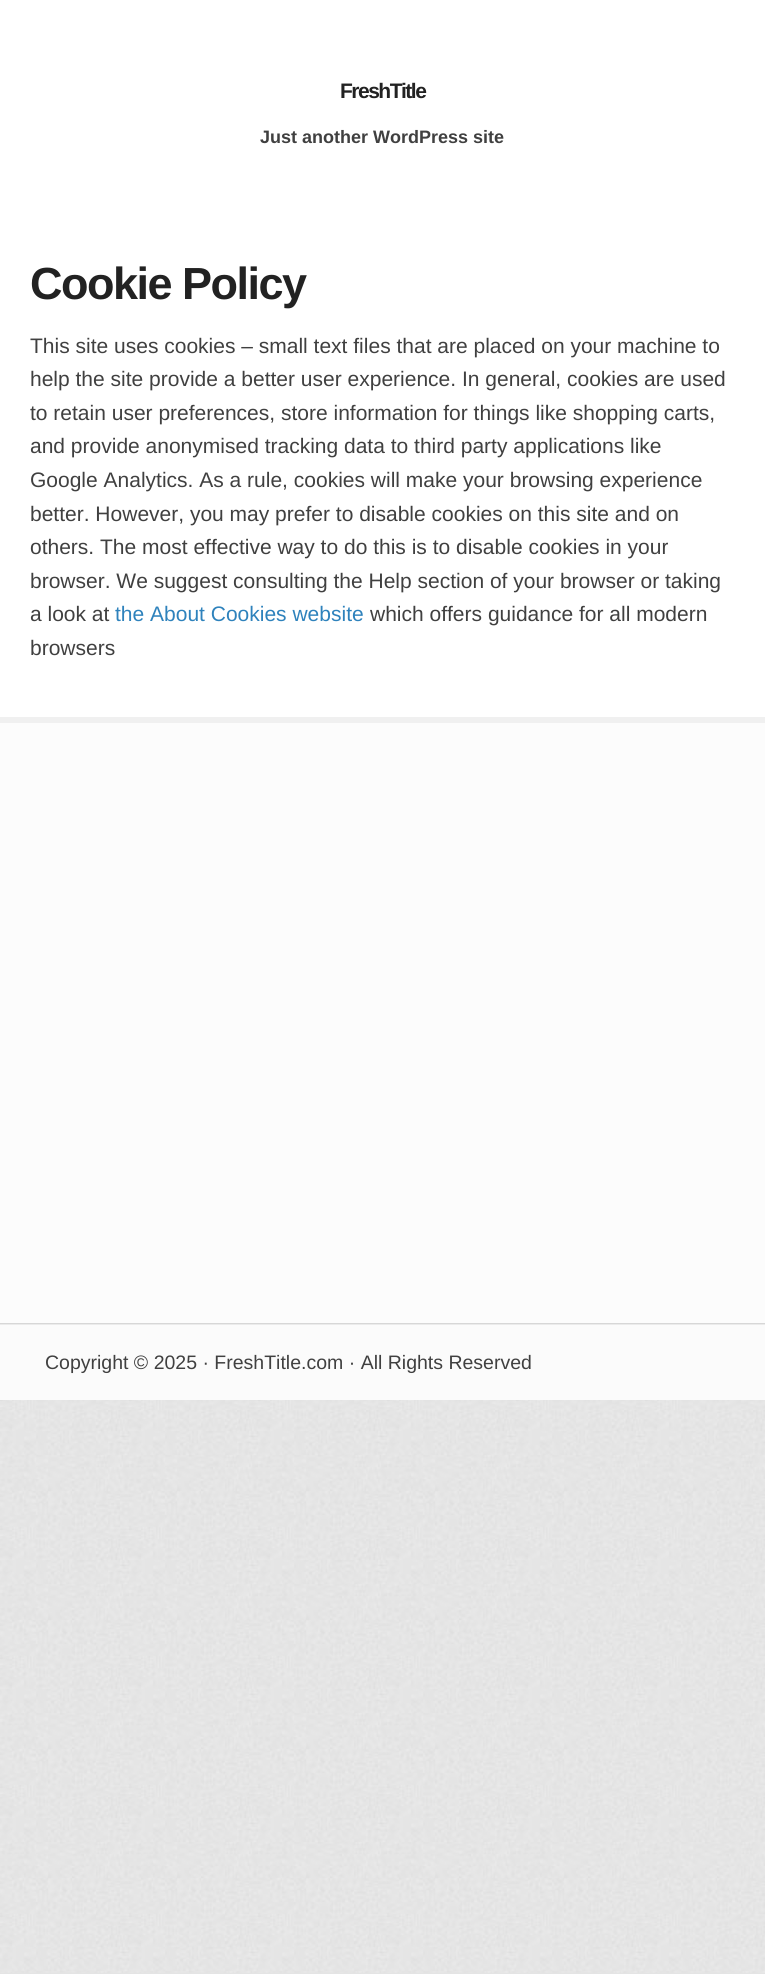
#include <cairo.h>
#include <math.h>
#include <stddef.h>

typedef struct { double x, y; const char *s; } line_t;
typedef struct { double x, y, w, h; unsigned color; } box_t;

static void ink(cairo_t *ctx, unsigned color) {
    cairo_set_source_rgb(ctx, (color >> 16) / 255.0, (color >> 8 & 255) / 255.0, (color & 255) / 255.0);
}

static void write_spaced(cairo_t *ctx, double x, double y, const char *s, double letter, double word) {
    cairo_move_to(ctx, x, y);
    while (*s) {
        char ch[5] = {0};
        int n = 0;
        do ch[n++] = *s++; while ((*s & 0xC0) == 0x80);
        cairo_show_text(ctx, ch);
        cairo_rel_move_to(ctx, letter + word * (*ch == ' '), 0);
    }
}

static void paste(cairo_t *ctx, const char *path, double x, double y, double w, double h) {
    cairo_surface_t *image = cairo_image_surface_create_from_png(path);
    cairo_save(ctx);
    cairo_set_source_surface(ctx, image, x, y);
    cairo_rectangle(ctx, x, y, w, h);
    cairo_fill(ctx);
    cairo_restore(ctx);
    cairo_surface_destroy(image);
}

int main(void) {
    cairo_surface_t *surface = cairo_image_surface_create(CAIRO_FORMAT_RGB24, 765, 1974);
    cairo_t *ctx = cairo_create(surface);
    cairo_font_options_t *options = cairo_font_options_create();
    cairo_font_options_set_hint_metrics(options, CAIRO_HINT_METRICS_OFF);
    cairo_font_options_set_hint_style(options, CAIRO_HINT_STYLE_NONE);
    cairo_set_font_options(ctx, options);
    cairo_set_miter_limit(ctx, 4);
    ink(ctx, 0xE4E4E4);
    cairo_paint(ctx);
    paste(ctx, "media/1.png", 0, 1400, 765, 573);
    ink(ctx, 0xFFFFFF);
    cairo_rectangle(ctx, 0, 0, 765, 717);
    cairo_fill(ctx);
    cairo_select_font_face(ctx, "Liberation Sans", CAIRO_FONT_SLANT_NORMAL, CAIRO_FONT_WEIGHT_BOLD);
    cairo_set_font_size(ctx, 21);
    ink(ctx, 0x222222);
    write_spaced(ctx, 340, 98, "FreshTitle", -1.5, 0);
    cairo_set_font_size(ctx, 18);
    ink(ctx, 0x404040);
    cairo_move_to(ctx, 260, 143);
    cairo_show_text(ctx, "Just another WordPress site");
    cairo_set_font_size(ctx, 45);
    ink(ctx, 0x222222);
    write_spaced(ctx, 30, 299, "Cookie Policy", -1.5, 0);
    cairo_select_font_face(ctx, "Liberation Sans", CAIRO_FONT_SLANT_NORMAL, CAIRO_FONT_WEIGHT_NORMAL);
    cairo_set_font_size(ctx, 21);
    ink(ctx, 0x404040);
    {
        static const line_t items[] = {
            {30, 353, "This site uses cookies – small text files that are placed on your machine to"},
            {30, 386, "help the site provide a better user experience. In general, cookies are used"},
            {30, 420, "to retain user preferences, store information for things like shopping carts,"},
            {30, 453, "and provide anonymised tracking data to third party applications like"},
            {30, 487, "Google Analytics. As a rule, cookies will make your browsing experience"},
            {30, 521, "better. However, you may prefer to disable cookies on this site and on"},
            {30, 554, "others. The most effective way to do this is to disable cookies in your"},
            {30, 588, "browser. We suggest consulting the Help section of your browser or taking"},
            {30, 621, "a look at"},
        };
        for (size_t i = 0; i < sizeof items / sizeof *items; i++) {
            cairo_move_to(ctx, items[i].x, items[i].y);
            cairo_show_text(ctx, items[i].s);
        }
    }
    ink(ctx, 0x2E82BC);
    cairo_move_to(ctx, 115, 621);
    cairo_show_text(ctx, "the About Cookies website");
    ink(ctx, 0x404040);
    cairo_move_to(ctx, 370, 621);
    cairo_show_text(ctx, "which offers guidance for all modern");
    cairo_move_to(ctx, 30, 655);
    cairo_show_text(ctx, "browsers");
    {
        static const box_t items[] = {
            {0, 723, 765, 600, 0xFCFCFC},
            {0, 717, 765, 6, 0xF0F0F0},
            {0, 1325, 765, 75, 0xFBFBFB},
        };
        for (size_t i = 0; i < sizeof items / sizeof *items; i++) {
            ink(ctx, items[i].color);
            cairo_rectangle(ctx, items[i].x, items[i].y, items[i].w, items[i].h);
            cairo_fill(ctx);
        }
    }
    paste(ctx, "media/2.png", 0, 1323, 765, 2);
    cairo_set_font_size(ctx, 19.5);
    ink(ctx, 0x404040);
    cairo_move_to(ctx, 45, 1369);
    cairo_show_text(ctx, "Copyright © 2025 · FreshTitle.com · All Rights Reserved");
    cairo_surface_write_to_png(surface, "image.png");
    cairo_font_options_destroy(options);
    cairo_destroy(ctx);
    cairo_surface_destroy(surface);
    return 0;
}
